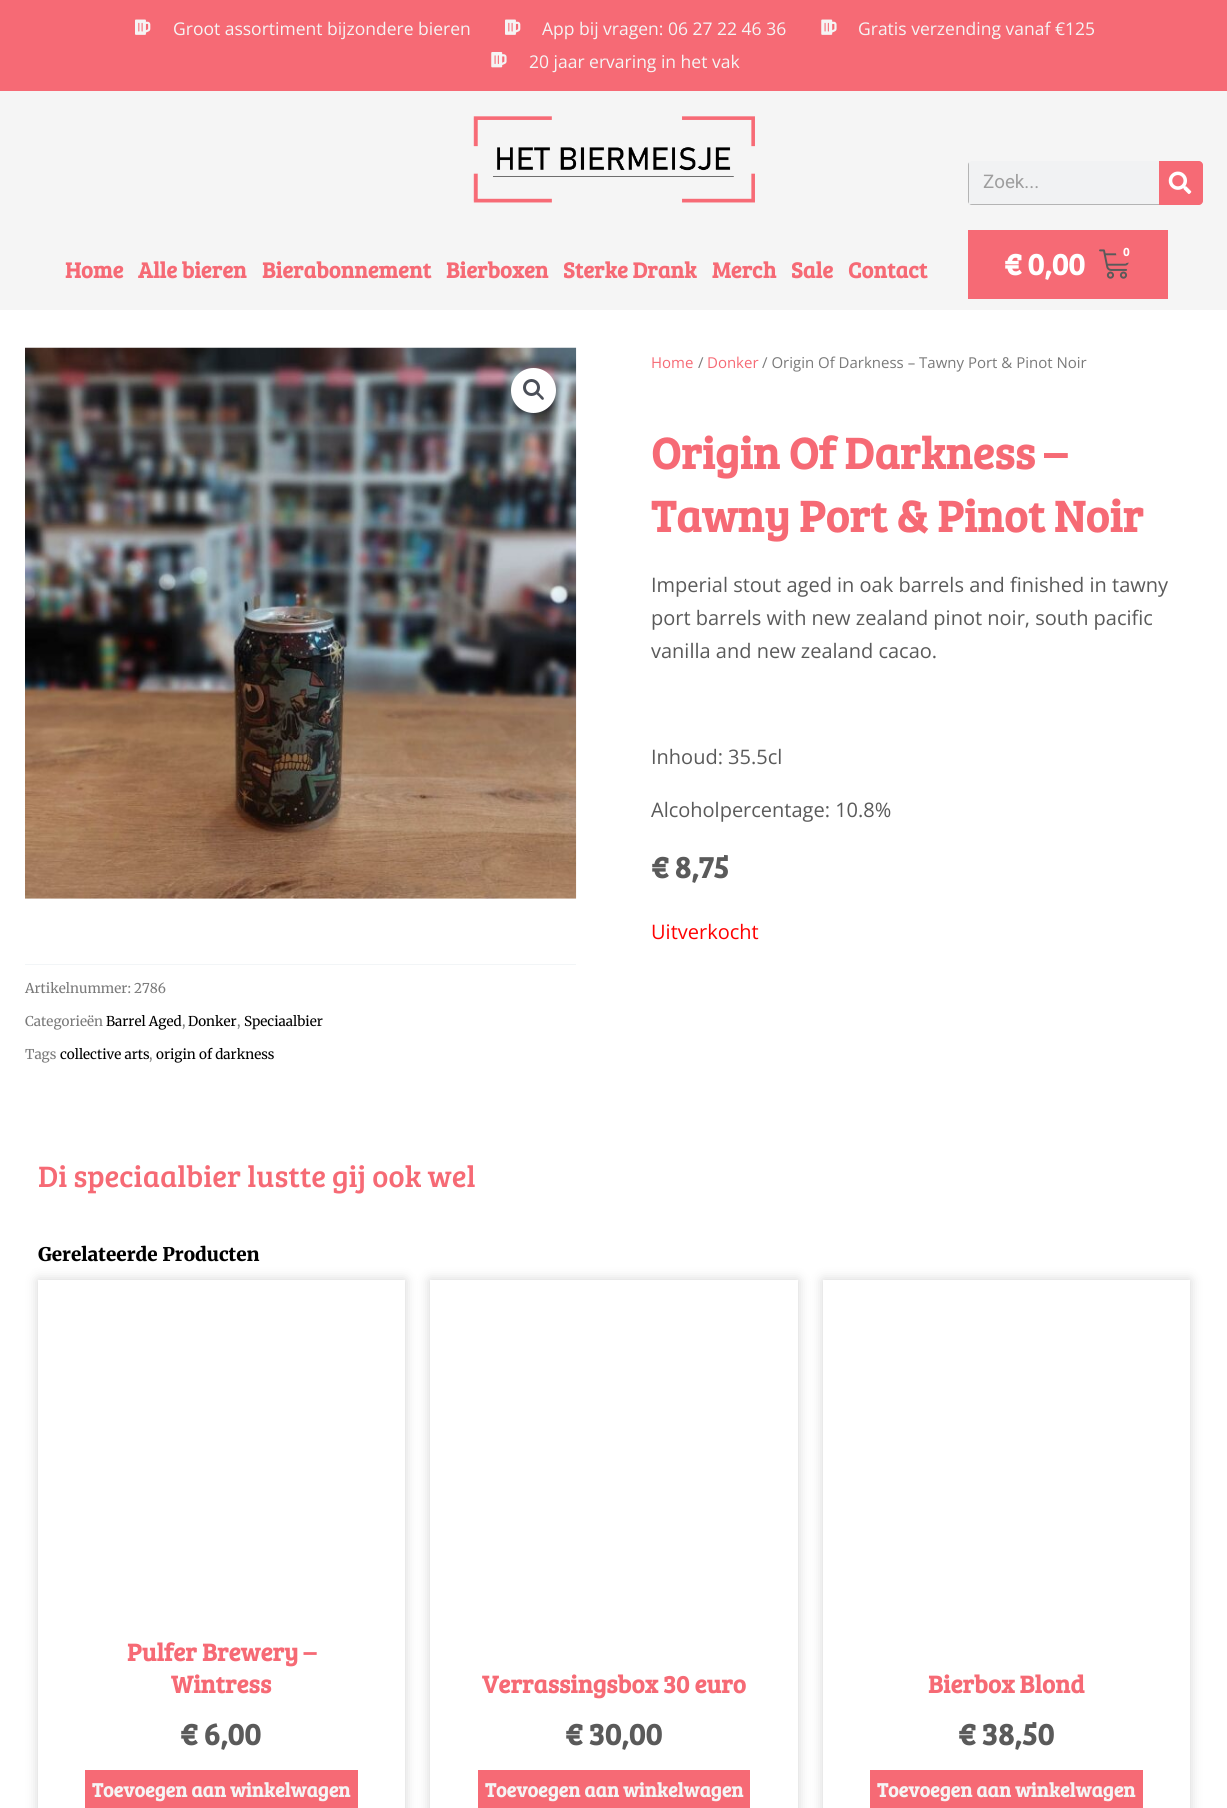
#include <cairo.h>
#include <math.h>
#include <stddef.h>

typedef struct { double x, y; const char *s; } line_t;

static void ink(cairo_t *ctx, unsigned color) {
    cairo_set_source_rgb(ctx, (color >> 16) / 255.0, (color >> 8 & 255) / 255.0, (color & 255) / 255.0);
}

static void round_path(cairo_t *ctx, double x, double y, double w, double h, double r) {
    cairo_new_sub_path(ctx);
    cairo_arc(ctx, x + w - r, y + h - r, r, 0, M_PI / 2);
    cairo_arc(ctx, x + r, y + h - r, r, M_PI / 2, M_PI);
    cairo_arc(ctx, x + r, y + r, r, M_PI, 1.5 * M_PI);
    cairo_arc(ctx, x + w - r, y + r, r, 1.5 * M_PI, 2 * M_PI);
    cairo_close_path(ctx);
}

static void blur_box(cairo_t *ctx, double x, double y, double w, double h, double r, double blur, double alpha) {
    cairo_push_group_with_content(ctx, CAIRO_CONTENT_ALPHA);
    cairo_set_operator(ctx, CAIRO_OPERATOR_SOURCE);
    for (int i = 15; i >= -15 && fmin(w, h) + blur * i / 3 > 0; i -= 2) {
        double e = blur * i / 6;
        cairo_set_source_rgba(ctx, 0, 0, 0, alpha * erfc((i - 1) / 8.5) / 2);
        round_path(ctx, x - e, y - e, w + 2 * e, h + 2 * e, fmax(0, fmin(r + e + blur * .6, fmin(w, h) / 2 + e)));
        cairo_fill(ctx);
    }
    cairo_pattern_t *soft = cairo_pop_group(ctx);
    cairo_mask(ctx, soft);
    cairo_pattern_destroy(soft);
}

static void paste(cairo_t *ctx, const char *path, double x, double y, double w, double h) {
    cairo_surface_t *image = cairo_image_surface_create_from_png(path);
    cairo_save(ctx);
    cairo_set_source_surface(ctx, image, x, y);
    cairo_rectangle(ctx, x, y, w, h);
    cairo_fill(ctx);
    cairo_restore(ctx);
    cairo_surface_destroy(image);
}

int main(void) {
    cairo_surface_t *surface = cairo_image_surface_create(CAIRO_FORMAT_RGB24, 1227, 1808);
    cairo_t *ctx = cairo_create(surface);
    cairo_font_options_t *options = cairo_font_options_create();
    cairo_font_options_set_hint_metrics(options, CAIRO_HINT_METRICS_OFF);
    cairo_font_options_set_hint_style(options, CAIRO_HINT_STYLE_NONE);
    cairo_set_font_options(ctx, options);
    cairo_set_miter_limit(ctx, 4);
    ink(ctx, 0xFFFFFF);
    cairo_paint(ctx);
    ink(ctx, 0xF66A75);
    cairo_rectangle(ctx, 0, 0, 1227, 91);
    cairo_fill(ctx);
    paste(ctx, "media/1.png", 135, 19, 16, 16);
    cairo_select_font_face(ctx, "Open Sans", CAIRO_FONT_SLANT_NORMAL, CAIRO_FONT_WEIGHT_NORMAL);
    cairo_set_font_size(ctx, 17.5);
    ink(ctx, 0xF5F5F5);
    cairo_move_to(ctx, 173, 35);
    cairo_show_text(ctx, "Groot assortiment bijzondere bieren");
    paste(ctx, "media/1.png", 505, 19, 16, 16);
    cairo_move_to(ctx, 542, 35);
    cairo_show_text(ctx, "App bij vragen: 06 27 22 46 36");
    paste(ctx, "media/2.png", 821, 19, 16, 16);
    cairo_move_to(ctx, 858, 35);
    cairo_show_text(ctx, "Gratis verzending vanaf €125");
    paste(ctx, "media/3.png", 491, 52, 16, 16);
    cairo_move_to(ctx, 529, 68);
    cairo_show_text(ctx, "20 jaar ervaring in het vak");
    cairo_rectangle(ctx, 0, 91, 1227, 219);
    cairo_fill(ctx);
    paste(ctx, "media/4.png", 473, 116, 282, 87);
    cairo_select_font_face(ctx, "Bree Serif", CAIRO_FONT_SLANT_NORMAL, CAIRO_FONT_WEIGHT_BOLD);
    cairo_set_font_size(ctx, 22.5);
    ink(ctx, 0xF66A75);
    {
        static const line_t items[] = {
            {65, 278, "Home"},
            {138, 278, "Alle bieren"},
            {262, 278, "Bierabonnement"},
            {446, 278, "Bierboxen"},
            {563, 278, "Sterke Drank"},
            {712, 278, "Merch"},
            {791, 278, "Sale"},
            {848, 278, "Contact"},
        };
        for (size_t i = 0; i < sizeof items / sizeof *items; i++) {
            cairo_move_to(ctx, items[i].x, items[i].y);
            cairo_show_text(ctx, items[i].s);
        }
    }
    ink(ctx, 0xF1F2F3);
    round_path(ctx, 968, 161, 235, 44, 4);
    cairo_fill(ctx);
    cairo_save(ctx);
    round_path(ctx, 968, 161, 235, 44, 4);
    cairo_clip(ctx);
    ink(ctx, 0xB4B4B4);
    cairo_rectangle(ctx, 968, 204, 191, 1);
    cairo_fill(ctx);
    cairo_rectangle(ctx, 968, 161, 1, 44);
    cairo_fill(ctx);
    cairo_restore(ctx);
    cairo_select_font_face(ctx, "Roboto", CAIRO_FONT_SLANT_NORMAL, CAIRO_FONT_WEIGHT_NORMAL);
    cairo_set_font_size(ctx, 18.75);
    ink(ctx, 0x9E9E9E);
    cairo_move_to(ctx, 983, 188);
    cairo_show_text(ctx, "Zoek...");
    ink(ctx, 0xF66A75);
    cairo_new_path(ctx);
    cairo_move_to(ctx, 1159, 161);
    cairo_line_to(ctx, 1199, 161);
    cairo_curve_to(ctx, 1201, 161, 1203, 163, 1203, 165);
    cairo_line_to(ctx, 1203, 201);
    cairo_curve_to(ctx, 1203, 203, 1201, 205, 1199, 205);
    cairo_line_to(ctx, 1159, 205);
    cairo_close_path(ctx);
    cairo_fill(ctx);
    paste(ctx, "media/5.png", 1168, 171, 24, 23);
    cairo_rectangle(ctx, 968, 230, 200, 69);
    cairo_fill(ctx);
    paste(ctx, "media/6.png", 1099, 249, 30, 30);
    cairo_arc(ctx, 1126, 253, 10, 0, 2 * M_PI);
    cairo_fill(ctx);
    cairo_select_font_face(ctx, "Bree Serif", CAIRO_FONT_SLANT_NORMAL, CAIRO_FONT_WEIGHT_BOLD);
    cairo_set_font_size(ctx, 12);
    ink(ctx, 0xFFFFFF);
    cairo_move_to(ctx, 1123, 256);
    cairo_show_text(ctx, "0");
    cairo_set_font_size(ctx, 31);
    cairo_move_to(ctx, 1004, 275);
    cairo_show_text(ctx, "€ 0,00");
    cairo_select_font_face(ctx, "Open Sans", CAIRO_FONT_SLANT_NORMAL, CAIRO_FONT_WEIGHT_NORMAL);
    cairo_set_font_size(ctx, 15);
    ink(ctx, 0xF66A75);
    cairo_move_to(ctx, 651, 368);
    cairo_show_text(ctx, "Home");
    ink(ctx, 0x7A7A7A);
    cairo_move_to(ctx, 698, 368);
    cairo_show_text(ctx, "/");
    ink(ctx, 0xF66A75);
    cairo_move_to(ctx, 707, 368);
    cairo_show_text(ctx, "Donker");
    ink(ctx, 0x7A7A7A);
    cairo_move_to(ctx, 762, 368);
    cairo_show_text(ctx, "/ Origin Of Darkness – Tawny Port & Pinot Noir");
    cairo_select_font_face(ctx, "Bree Serif", CAIRO_FONT_SLANT_NORMAL, CAIRO_FONT_WEIGHT_BOLD);
    cairo_set_font_size(ctx, 45);
    ink(ctx, 0xF66A75);
    cairo_move_to(ctx, 651, 469);
    cairo_show_text(ctx, "Origin Of Darkness –");
    cairo_move_to(ctx, 651, 532);
    cairo_show_text(ctx, "Tawny Port & Pinot Noir");
    cairo_select_font_face(ctx, "Open Sans", CAIRO_FONT_SLANT_NORMAL, CAIRO_FONT_WEIGHT_NORMAL);
    cairo_set_font_size(ctx, 20);
    ink(ctx, 0x5A5A5A);
    {
        static const line_t items[] = {
            {651, 592, "Imperial stout aged in oak barrels and finished in tawny"},
            {651, 625, "port barrels with new zealand pinot noir, south pacific"},
            {651, 658, "vanilla and new zealand cacao."},
            {651, 764, "Inhoud: 35.5cl"},
            {651, 817, "Alcoholpercentage: 10.8%"},
        };
        for (size_t i = 0; i < sizeof items / sizeof *items; i++) {
            cairo_move_to(ctx, items[i].x, items[i].y);
            cairo_show_text(ctx, items[i].s);
        }
    }
    cairo_select_font_face(ctx, "Bree Serif", CAIRO_FONT_SLANT_NORMAL, CAIRO_FONT_WEIGHT_BOLD);
    cairo_set_font_size(ctx, 31);
    cairo_move_to(ctx, 651, 878);
    cairo_show_text(ctx, "€ 8,75");
    cairo_select_font_face(ctx, "Open Sans", CAIRO_FONT_SLANT_NORMAL, CAIRO_FONT_WEIGHT_NORMAL);
    cairo_set_font_size(ctx, 20);
    ink(ctx, 0xFF0000);
    cairo_move_to(ctx, 651, 939);
    cairo_show_text(ctx, "Uitverkocht");
    paste(ctx, "media/7.png", 25, 347, 552, 552);
    ink(ctx, 0xFFFFFF);
    cairo_arc(ctx, 533.5, 390.5, 22.5, 0, 2 * M_PI);
    cairo_fill(ctx);
    cairo_arc(ctx, 531.5, 387.5, 7, 0, 2 * M_PI);
    ink(ctx, 0x4B4F58);
    cairo_set_line_width(ctx, 3);
    cairo_stroke(ctx);
    cairo_new_path(ctx);
    cairo_move_to(ctx, 536.5, 392.5);
    cairo_curve_to(ctx, 538, 391, 540, 394, 541, 395);
    cairo_curve_to(ctx, 541.5, 395.5, 545, 398, 543.5, 399.5);
    cairo_curve_to(ctx, 542, 401, 540, 397.5, 539, 396.5);
    cairo_curve_to(ctx, 538.5, 396, 535, 393.5, 536.5, 392.5);
    cairo_close_path(ctx);
    cairo_fill(ctx);
    ink(ctx, 0xF2F5F7);
    cairo_rectangle(ctx, 25, 964, 551, 1);
    cairo_fill(ctx);
    cairo_select_font_face(ctx, "Merriweather", CAIRO_FONT_SLANT_NORMAL, CAIRO_FONT_WEIGHT_NORMAL);
    cairo_set_font_size(ctx, 13.5);
    ink(ctx, 0x7A7A7A);
    cairo_move_to(ctx, 25, 993);
    cairo_show_text(ctx, "Artikelnummer: 2786");
    cairo_move_to(ctx, 25, 1026);
    cairo_show_text(ctx, "Categorieën");
    ink(ctx, 0x000000);
    cairo_move_to(ctx, 106, 1026);
    cairo_show_text(ctx, "Barrel Aged");
    ink(ctx, 0x7A7A7A);
    cairo_move_to(ctx, 182, 1026);
    cairo_show_text(ctx, ",");
    ink(ctx, 0x000000);
    cairo_move_to(ctx, 188, 1026);
    cairo_show_text(ctx, "Donker");
    ink(ctx, 0x7A7A7A);
    cairo_move_to(ctx, 237, 1026);
    cairo_show_text(ctx, ",");
    ink(ctx, 0x000000);
    cairo_move_to(ctx, 244, 1026);
    cairo_show_text(ctx, "Speciaalbier");
    ink(ctx, 0x7A7A7A);
    cairo_move_to(ctx, 25, 1059);
    cairo_show_text(ctx, "Tags");
    ink(ctx, 0x000000);
    cairo_move_to(ctx, 60, 1059);
    cairo_show_text(ctx, "collective arts");
    ink(ctx, 0x7A7A7A);
    cairo_move_to(ctx, 149, 1059);
    cairo_show_text(ctx, ",");
    ink(ctx, 0x000000);
    cairo_move_to(ctx, 156, 1059);
    cairo_show_text(ctx, "origin of darkness");
    cairo_select_font_face(ctx, "Bree Serif", CAIRO_FONT_SLANT_NORMAL, CAIRO_FONT_WEIGHT_NORMAL);
    cairo_set_font_size(ctx, 30.5);
    ink(ctx, 0xF66A75);
    cairo_move_to(ctx, 38, 1187);
    cairo_show_text(ctx, "Di speciaalbier lustte gij ook wel");
    cairo_select_font_face(ctx, "Merriweather Black", CAIRO_FONT_SLANT_NORMAL, CAIRO_FONT_WEIGHT_NORMAL);
    cairo_set_font_size(ctx, 18.75);
    ink(ctx, 0x000000);
    cairo_move_to(ctx, 38, 1261);
    cairo_show_text(ctx, "Gerelateerde Producten");
    cairo_save(ctx);
    cairo_set_fill_rule(ctx, CAIRO_FILL_RULE_EVEN_ODD);
    cairo_new_path(ctx);
    cairo_move_to(ctx, 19, 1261);
    cairo_line_to(ctx, 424, 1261);
    cairo_line_to(ctx, 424, 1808);
    cairo_line_to(ctx, 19, 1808);
    cairo_close_path(ctx);
    cairo_move_to(ctx, 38, 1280);
    cairo_line_to(ctx, 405, 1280);
    cairo_line_to(ctx, 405, 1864);
    cairo_line_to(ctx, 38, 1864);
    cairo_close_path(ctx);
    cairo_clip(ctx);
    ink(ctx, 0xA8A8A8);
    blur_box(ctx, 38, 1280, 367, 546, 0, 6, 0.5);
    cairo_restore(ctx);
    cairo_select_font_face(ctx, "Bree Serif", CAIRO_FONT_SLANT_NORMAL, CAIRO_FONT_WEIGHT_BOLD);
    cairo_set_font_size(ctx, 25);
    ink(ctx, 0xF66A75);
    cairo_move_to(ctx, 127, 1661);
    cairo_show_text(ctx, "Pulfer Brewery –");
    cairo_move_to(ctx, 171, 1693);
    cairo_show_text(ctx, "Wintress");
    cairo_set_font_size(ctx, 31);
    ink(ctx, 0x5A5A5A);
    cairo_move_to(ctx, 180, 1745);
    cairo_show_text(ctx, "€ 6,00");
    ink(ctx, 0xF66A75);
    cairo_rectangle(ctx, 85, 1770, 273, 38);
    cairo_fill(ctx);
    cairo_set_font_size(ctx, 20);
    ink(ctx, 0xF5F5F5);
    cairo_move_to(ctx, 92, 1797);
    cairo_show_text(ctx, "Toevoegen aan winkelwagen");
    cairo_save(ctx);
    cairo_set_fill_rule(ctx, CAIRO_FILL_RULE_EVEN_ODD);
    cairo_new_path(ctx);
    cairo_move_to(ctx, 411, 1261);
    cairo_line_to(ctx, 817, 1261);
    cairo_line_to(ctx, 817, 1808);
    cairo_line_to(ctx, 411, 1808);
    cairo_close_path(ctx);
    cairo_move_to(ctx, 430, 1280);
    cairo_line_to(ctx, 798, 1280);
    cairo_line_to(ctx, 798, 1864);
    cairo_line_to(ctx, 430, 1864);
    cairo_close_path(ctx);
    cairo_clip(ctx);
    ink(ctx, 0xA8A8A8);
    blur_box(ctx, 430, 1280, 368, 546, 0, 6, 0.5);
    cairo_restore(ctx);
    cairo_set_source_rgba(ctx, 1, 1, 1, 0.28);
    cairo_rectangle(ctx, 797, 1285, 1, 523);
    cairo_fill(ctx);
    cairo_set_font_size(ctx, 25);
    ink(ctx, 0xF66A75);
    cairo_move_to(ctx, 482, 1693);
    cairo_show_text(ctx, "Verrassingsbox 30 euro");
    cairo_set_font_size(ctx, 31);
    ink(ctx, 0x5A5A5A);
    cairo_move_to(ctx, 565, 1745);
    cairo_show_text(ctx, "€ 30,00");
    ink(ctx, 0xF66A75);
    cairo_rectangle(ctx, 478, 1770, 272, 38);
    cairo_fill(ctx);
    cairo_set_font_size(ctx, 20);
    ink(ctx, 0xF5F5F5);
    cairo_move_to(ctx, 485, 1797);
    cairo_show_text(ctx, "Toevoegen aan winkelwagen");
    cairo_save(ctx);
    cairo_set_fill_rule(ctx, CAIRO_FILL_RULE_EVEN_ODD);
    cairo_new_path(ctx);
    cairo_move_to(ctx, 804, 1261);
    cairo_line_to(ctx, 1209, 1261);
    cairo_line_to(ctx, 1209, 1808);
    cairo_line_to(ctx, 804, 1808);
    cairo_close_path(ctx);
    cairo_move_to(ctx, 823, 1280);
    cairo_line_to(ctx, 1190, 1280);
    cairo_line_to(ctx, 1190, 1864);
    cairo_line_to(ctx, 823, 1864);
    cairo_close_path(ctx);
    cairo_clip(ctx);
    ink(ctx, 0xA8A8A8);
    blur_box(ctx, 823, 1280, 367, 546, 0, 6, 0.5);
    cairo_restore(ctx);
    cairo_set_font_size(ctx, 25);
    ink(ctx, 0xF66A75);
    cairo_move_to(ctx, 928, 1693);
    cairo_show_text(ctx, "Bierbox Blond");
    cairo_set_font_size(ctx, 31);
    ink(ctx, 0x5A5A5A);
    cairo_move_to(ctx, 958, 1745);
    cairo_show_text(ctx, "€ 38,50");
    ink(ctx, 0xF66A75);
    cairo_rectangle(ctx, 870, 1770, 273, 38);
    cairo_fill(ctx);
    cairo_set_font_size(ctx, 20);
    ink(ctx, 0xF5F5F5);
    cairo_move_to(ctx, 877, 1797);
    cairo_show_text(ctx, "Toevoegen aan winkelwagen");
    cairo_surface_write_to_png(surface, "image.png");
    cairo_font_options_destroy(options);
    cairo_destroy(ctx);
    cairo_surface_destroy(surface);
    return 0;
}
